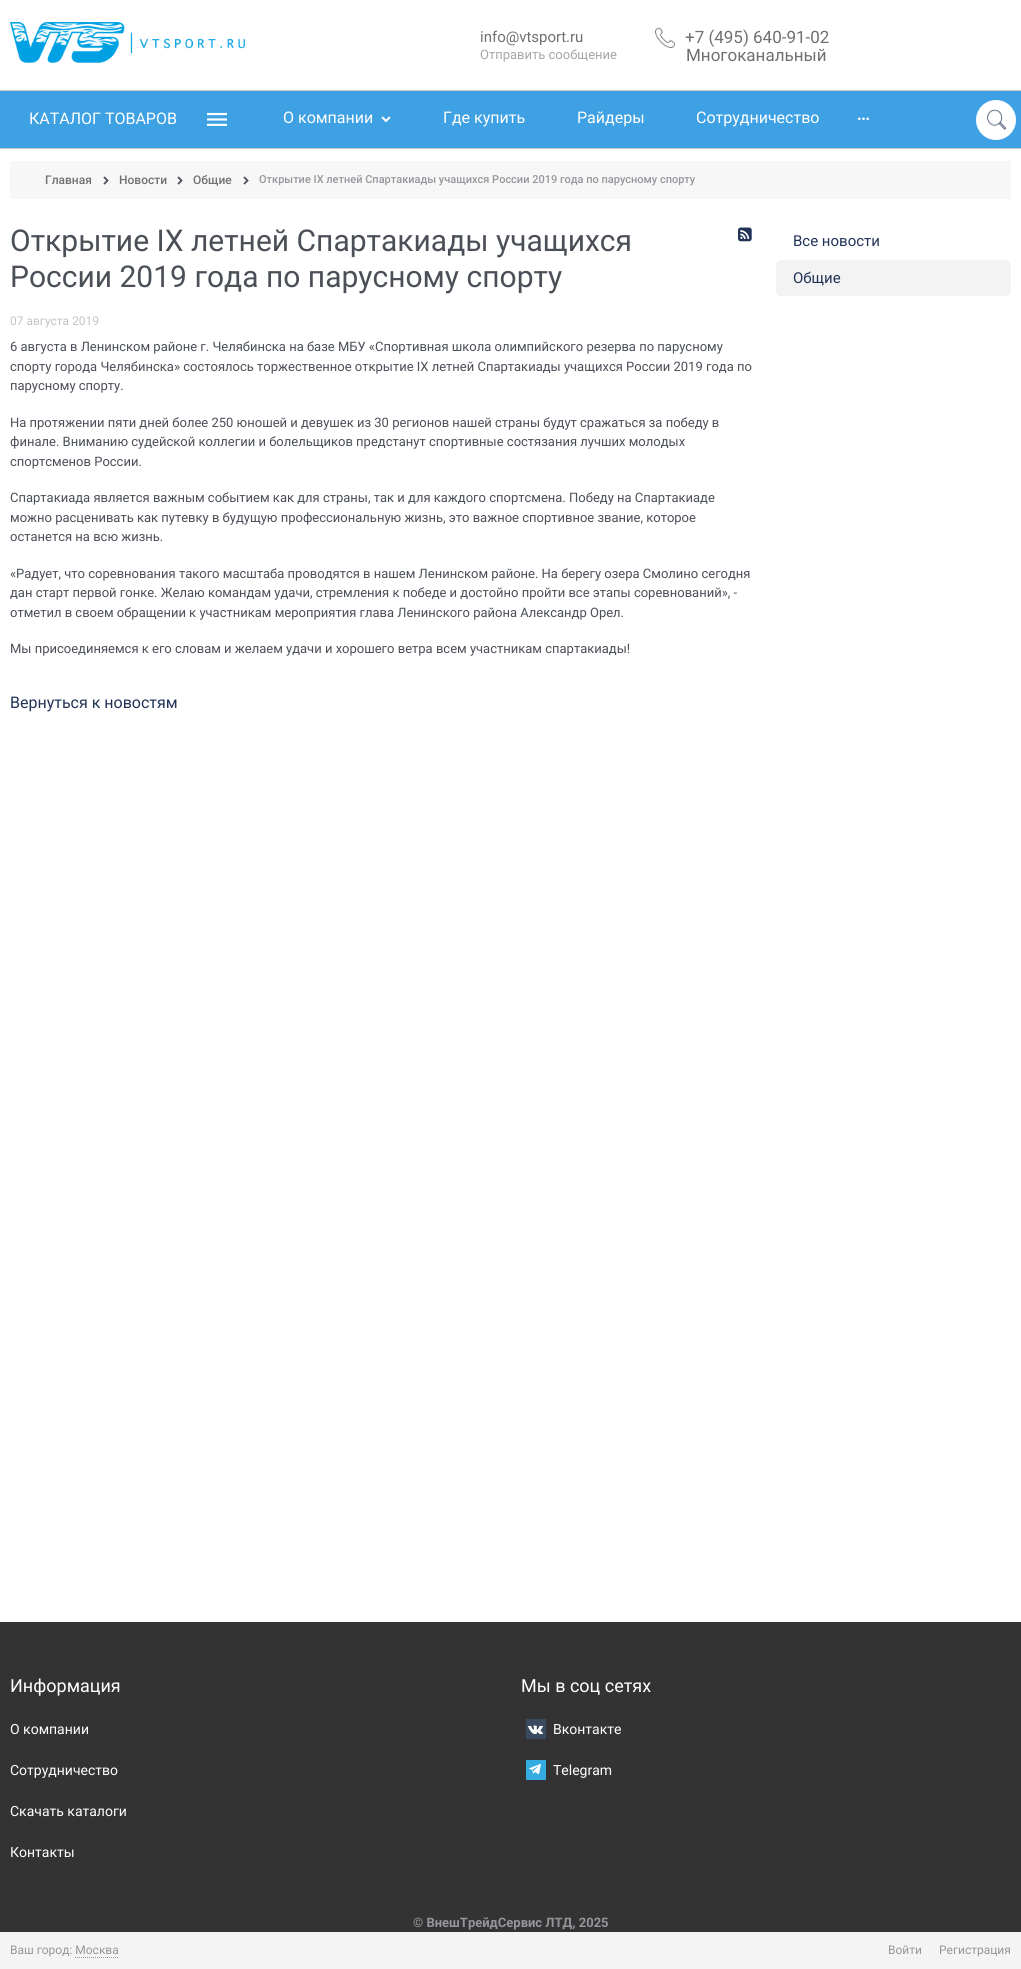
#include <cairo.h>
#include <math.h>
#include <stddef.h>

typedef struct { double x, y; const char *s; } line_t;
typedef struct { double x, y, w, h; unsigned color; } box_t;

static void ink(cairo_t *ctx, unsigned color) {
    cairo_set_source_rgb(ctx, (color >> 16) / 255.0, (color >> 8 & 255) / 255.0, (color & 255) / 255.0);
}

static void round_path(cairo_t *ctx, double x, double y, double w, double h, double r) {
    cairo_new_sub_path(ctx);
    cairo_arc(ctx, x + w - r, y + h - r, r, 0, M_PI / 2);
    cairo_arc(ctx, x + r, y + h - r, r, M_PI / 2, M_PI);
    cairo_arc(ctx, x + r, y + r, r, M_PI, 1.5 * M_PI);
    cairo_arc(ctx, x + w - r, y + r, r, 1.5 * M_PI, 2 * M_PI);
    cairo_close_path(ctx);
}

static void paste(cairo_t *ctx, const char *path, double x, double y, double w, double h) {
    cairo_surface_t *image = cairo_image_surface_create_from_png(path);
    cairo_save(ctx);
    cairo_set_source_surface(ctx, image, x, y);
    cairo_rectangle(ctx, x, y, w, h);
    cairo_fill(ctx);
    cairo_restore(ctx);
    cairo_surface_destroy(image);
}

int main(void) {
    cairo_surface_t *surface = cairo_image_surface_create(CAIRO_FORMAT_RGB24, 1021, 1969);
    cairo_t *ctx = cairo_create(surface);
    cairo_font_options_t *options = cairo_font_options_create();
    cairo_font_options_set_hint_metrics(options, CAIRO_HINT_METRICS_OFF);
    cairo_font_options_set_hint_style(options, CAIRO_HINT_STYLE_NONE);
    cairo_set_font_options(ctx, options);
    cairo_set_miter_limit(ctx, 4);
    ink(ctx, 0xFFFFFF);
    cairo_paint(ctx);
    paste(ctx, "media/1.png", 10, 22, 235, 41);
    cairo_select_font_face(ctx, "Roboto", CAIRO_FONT_SLANT_NORMAL, CAIRO_FONT_WEIGHT_NORMAL);
    cairo_set_font_size(ctx, 15);
    ink(ctx, 0x707070);
    cairo_move_to(ctx, 480, 42);
    cairo_show_text(ctx, "info@vtsport.ru");
    cairo_set_font_size(ctx, 13);
    ink(ctx, 0xA6A6A6);
    cairo_move_to(ctx, 480, 59);
    cairo_show_text(ctx, "Отправить сообщение");
    paste(ctx, "media/2.png", 655, 27, 20, 21);
    cairo_set_font_size(ctx, 17);
    ink(ctx, 0x707070);
    cairo_move_to(ctx, 685, 43);
    cairo_show_text(ctx, "+7 (495) 640-91-02");
    cairo_move_to(ctx, 686, 61);
    cairo_show_text(ctx, "Многоканальный");
    {
        static const box_t items[] = {
            {0, 91, 1021, 57, 0x3EA1E4},
            {0, 90, 1021, 1, 0xCACACA},
            {0, 148, 1021, 1, 0xCACACA},
        };
        for (size_t i = 0; i < sizeof items / sizeof *items; i++) {
            ink(ctx, items[i].color);
            cairo_rectangle(ctx, items[i].x, items[i].y, items[i].w, items[i].h);
            cairo_fill(ctx);
        }
    }
    cairo_set_font_size(ctx, 16);
    ink(ctx, 0xFFFFFF);
    cairo_move_to(ctx, 29, 124);
    cairo_show_text(ctx, "КАТАЛОГ ТОВАРОВ");
    paste(ctx, "media/3.png", 207, 112, 20, 14);
    cairo_move_to(ctx, 283, 123);
    cairo_show_text(ctx, "О компании");
    paste(ctx, "media/4.png", 381, 116, 10, 7);
    {
        static const line_t items[] = {
            {443, 123, "Где купить"},
            {577, 123, "Райдеры"},
            {696, 123, "Сотрудничество"},
        };
        for (size_t i = 0; i < sizeof items / sizeof *items; i++) {
            cairo_move_to(ctx, items[i].x, items[i].y);
            cairo_show_text(ctx, items[i].s);
        }
    }
    paste(ctx, "media/5.png", 858, 117, 11, 4);
    cairo_arc(ctx, 996, 120, 20, 0, 2 * M_PI);
    cairo_fill(ctx);
    paste(ctx, "media/6.png", 987, 109, 20, 21);
    ink(ctx, 0xF7F7F7);
    cairo_rectangle(ctx, 10, 161, 1001, 38);
    cairo_fill(ctx);
    cairo_select_font_face(ctx, "Roboto Medium", CAIRO_FONT_SLANT_NORMAL, CAIRO_FONT_WEIGHT_NORMAL);
    cairo_set_font_size(ctx, 12);
    ink(ctx, 0x707070);
    cairo_move_to(ctx, 45, 184);
    cairo_show_text(ctx, "Главная");
    paste(ctx, "media/7.png", 103, 176, 6, 9);
    cairo_move_to(ctx, 119, 184);
    cairo_show_text(ctx, "Новости");
    paste(ctx, "media/7.png", 177, 176, 6, 9);
    cairo_move_to(ctx, 193, 184);
    cairo_show_text(ctx, "Общие");
    paste(ctx, "media/7.png", 243, 176, 6, 9);
    cairo_set_font_size(ctx, 11);
    ink(ctx, 0x94969B);
    cairo_move_to(ctx, 259, 183);
    cairo_show_text(ctx, "Открытие IX летней Спартакиады учащихся России 2019 года по парусному спорту");
    cairo_select_font_face(ctx, "Roboto", CAIRO_FONT_SLANT_NORMAL, CAIRO_FONT_WEIGHT_NORMAL);
    cairo_set_font_size(ctx, 30);
    ink(ctx, 0x4B4F58);
    cairo_move_to(ctx, 10, 251);
    cairo_show_text(ctx, "Открытие IX летней Спартакиады учащихся");
    cairo_move_to(ctx, 10, 287);
    cairo_show_text(ctx, "России 2019 года по парусному спорту");
    paste(ctx, "media/8.png", 738, 227, 14, 15);
    cairo_set_font_size(ctx, 12);
    ink(ctx, 0xC3C3C3);
    cairo_move_to(ctx, 10, 325);
    cairo_show_text(ctx, "07 августа 2019");
    cairo_set_font_size(ctx, 13);
    ink(ctx, 0x4B4F58);
    {
        static const line_t items[] = {
            {10, 351, "6 августа в Ленинском районе г. Челябинска на базе МБУ «Спортивная школа олимпийского резерва по парусному"},
            {10, 371, "спорту города Челябинска» состоялось торжественное открытие IX летней Спартакиады учащихся России 2019 года по"},
            {10, 390, "парусному спорту."},
            {10, 427, "На протяжении пяти дней более 250 юношей и девушек из 30 регионов нашей страны будут сражаться за победу в"},
            {10, 446, "финале. Вниманию судейской коллегии и болельщиков предстанут спортивные состязания лучших молодых"},
            {10, 466, "спортсменов России."},
            {10, 502, "Спартакиада является важным событием как для страны, так и для каждого спортсмена. Победу на Спартакиаде"},
            {10, 522, "можно расценивать как путевку в будущую профессиональную жизнь, это важное спортивное звание, которое"},
            {10, 541, "останется на всю жизнь."},
            {10, 578, "«Радует, что соревнования такого масштаба проводятся в нашем Ленинском районе. На берегу озера Смолино сегодня"},
            {10, 597, "дан старт первой гонке. Желаю командам удачи, стремления к победе и достойно пройти все этапы соревнований», -"},
            {10, 617, "отметил в своем обращении к участникам мероприятия глава Ленинского района Александр Орел."},
            {10, 653, "Мы присоединяемся к его словам и желаем удачи и хорошего ветра всем участникам спартакиады!"},
        };
        for (size_t i = 0; i < sizeof items / sizeof *items; i++) {
            cairo_move_to(ctx, items[i].x, items[i].y);
            cairo_show_text(ctx, items[i].s);
        }
    }
    cairo_set_font_size(ctx, 16);
    ink(ctx, 0x213357);
    cairo_move_to(ctx, 10, 708);
    cairo_show_text(ctx, "Вернуться к новостям");
    cairo_set_font_size(ctx, 15);
    cairo_move_to(ctx, 793, 246);
    cairo_show_text(ctx, "Все новости");
    ink(ctx, 0xF3F3F3);
    round_path(ctx, 776, 260, 235, 36, 5);
    cairo_fill(ctx);
    ink(ctx, 0x213357);
    cairo_move_to(ctx, 793, 283);
    cairo_show_text(ctx, "Общие");
    ink(ctx, 0x333333);
    cairo_rectangle(ctx, 0, 1622, 1021, 310);
    cairo_fill(ctx);
    cairo_set_font_size(ctx, 18);
    ink(ctx, 0xFFFFFF);
    cairo_move_to(ctx, 10, 1692);
    cairo_show_text(ctx, "Информация");
    cairo_set_font_size(ctx, 14);
    {
        static const line_t items[] = {
            {10, 1734, "О компании"},
            {10, 1775, "Сотрудничество"},
            {10, 1816, "Скачать каталоги"},
            {10, 1857, "Контакты"},
        };
        for (size_t i = 0; i < sizeof items / sizeof *items; i++) {
            cairo_move_to(ctx, items[i].x, items[i].y);
            cairo_show_text(ctx, items[i].s);
        }
    }
    cairo_set_font_size(ctx, 18);
    cairo_move_to(ctx, 521, 1692);
    cairo_show_text(ctx, "Мы в соц сетях");
    ink(ctx, 0x3B4A5F);
    cairo_rectangle(ctx, 526, 1719, 20, 20);
    cairo_fill(ctx);
    paste(ctx, "media/9.png", 528, 1725, 15, 10);
    cairo_set_font_size(ctx, 14);
    ink(ctx, 0xFFFFFF);
    cairo_move_to(ctx, 553, 1734);
    cairo_show_text(ctx, "Вконтакте");
    ink(ctx, 0x35ACE1);
    cairo_rectangle(ctx, 526, 1760, 20, 20);
    cairo_fill(ctx);
    paste(ctx, "media/10.png", 529, 1763, 12, 12);
    ink(ctx, 0xFFFFFF);
    cairo_move_to(ctx, 553, 1775);
    cairo_show_text(ctx, "Telegram");
    cairo_select_font_face(ctx, "Roboto", CAIRO_FONT_SLANT_NORMAL, CAIRO_FONT_WEIGHT_BOLD);
    cairo_set_font_size(ctx, 13);
    ink(ctx, 0x94969B);
    cairo_move_to(ctx, 413, 1927);
    cairo_show_text(ctx, "© ВнешТрейдСервис ЛТД, 2025");
    ink(ctx, 0xF4F4F4);
    cairo_rectangle(ctx, 0, 1932, 1021, 37);
    cairo_fill(ctx);
    cairo_select_font_face(ctx, "Roboto", CAIRO_FONT_SLANT_NORMAL, CAIRO_FONT_WEIGHT_NORMAL);
    cairo_set_font_size(ctx, 12);
    ink(ctx, 0x94969B);
    cairo_move_to(ctx, 10, 1954);
    cairo_show_text(ctx, "Ваш город: Москва");
    cairo_new_path(ctx);
    cairo_move_to(ctx, 75, 1957.5);
    cairo_line_to(ctx, 119, 1957.5);
    cairo_set_line_width(ctx, 1);
    cairo_set_dash(ctx, (double[]){1, 1}, 2, 0);
    cairo_stroke(ctx);
    cairo_move_to(ctx, 888, 1954);
    cairo_show_text(ctx, "Войти");
    cairo_move_to(ctx, 939, 1954);
    cairo_show_text(ctx, "Регистрация");
    cairo_surface_write_to_png(surface, "image.png");
    cairo_font_options_destroy(options);
    cairo_destroy(ctx);
    cairo_surface_destroy(surface);
    return 0;
}
